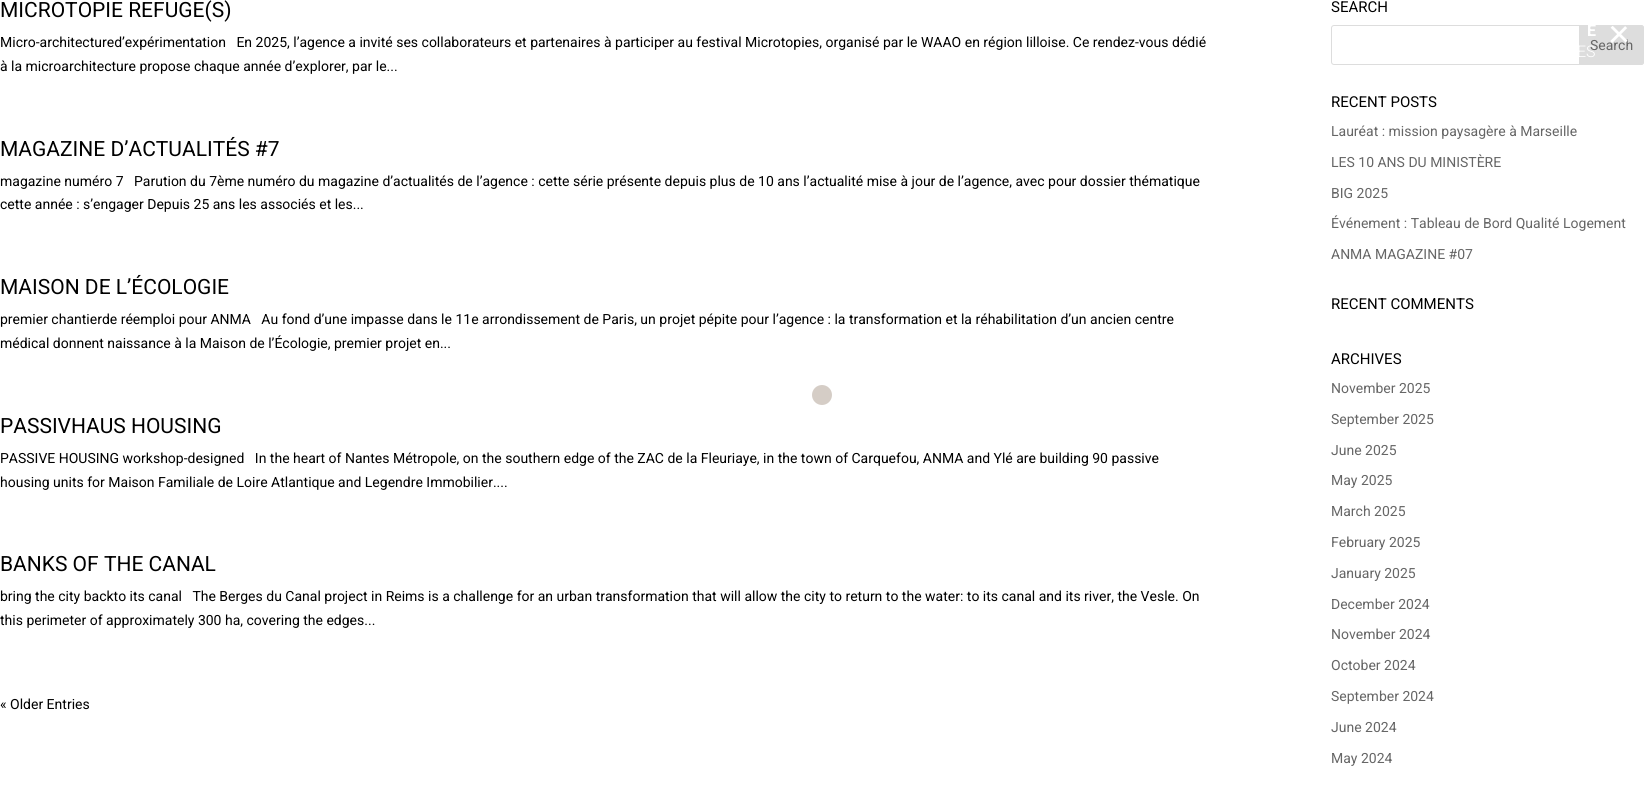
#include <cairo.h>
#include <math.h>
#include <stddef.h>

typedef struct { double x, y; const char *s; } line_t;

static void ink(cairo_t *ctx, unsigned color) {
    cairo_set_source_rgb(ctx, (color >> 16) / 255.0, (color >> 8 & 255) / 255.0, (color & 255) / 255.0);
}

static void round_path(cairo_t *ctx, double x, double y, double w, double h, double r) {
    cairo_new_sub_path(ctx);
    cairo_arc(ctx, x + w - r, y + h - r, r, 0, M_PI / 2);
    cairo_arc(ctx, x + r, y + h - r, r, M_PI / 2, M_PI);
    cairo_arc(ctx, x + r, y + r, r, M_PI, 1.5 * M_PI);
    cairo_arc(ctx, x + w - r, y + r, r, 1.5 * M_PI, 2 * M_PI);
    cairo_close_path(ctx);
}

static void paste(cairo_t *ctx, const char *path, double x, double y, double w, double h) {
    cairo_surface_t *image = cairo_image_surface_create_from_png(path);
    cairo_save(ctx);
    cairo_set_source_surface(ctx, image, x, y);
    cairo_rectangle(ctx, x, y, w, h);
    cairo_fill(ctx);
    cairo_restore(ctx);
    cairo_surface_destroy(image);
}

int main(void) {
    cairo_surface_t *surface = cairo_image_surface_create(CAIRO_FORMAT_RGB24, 1644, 789);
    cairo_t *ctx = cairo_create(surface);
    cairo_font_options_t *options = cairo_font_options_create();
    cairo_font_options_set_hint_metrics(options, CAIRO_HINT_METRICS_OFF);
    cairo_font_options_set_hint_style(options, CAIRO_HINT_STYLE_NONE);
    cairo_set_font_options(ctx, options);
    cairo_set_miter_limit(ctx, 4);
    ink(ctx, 0xFFFFFF);
    cairo_paint(ctx);
    cairo_select_font_face(ctx, "Roboto", CAIRO_FONT_SLANT_NORMAL, CAIRO_FONT_WEIGHT_NORMAL);
    cairo_set_font_size(ctx, 21);
    ink(ctx, 0x000000);
    cairo_move_to(ctx, 0, 17);
    cairo_show_text(ctx, "MICROTOPIE REFUGE(S)");
    cairo_set_font_size(ctx, 14);
    cairo_move_to(ctx, 0, 47);
    cairo_show_text(ctx, "Micro-architectured’expérimentation   En 2025, l’agence a invité ses collaborateurs et partenaires à participer au festival Microtopies, organisé par le WAAO en région lilloise. Ce rendez-vous dédié");
    cairo_move_to(ctx, 0, 71);
    cairo_show_text(ctx, "à la microarchitecture propose chaque année d’explorer, par le...");
    cairo_set_font_size(ctx, 21);
    cairo_move_to(ctx, 0, 156);
    cairo_show_text(ctx, "MAGAZINE D’ACTUALITÉS #7");
    cairo_set_font_size(ctx, 14);
    cairo_move_to(ctx, 0, 186);
    cairo_show_text(ctx, "magazine numéro 7   Parution du 7ème numéro du magazine d’actualités de l’agence : cette série présente depuis plus de 10 ans l’actualité mise à jour de l’agence, avec pour dossier thématique");
    cairo_move_to(ctx, 0, 209);
    cairo_show_text(ctx, "cette année : s’engager Depuis 25 ans les associés et les...");
    cairo_set_font_size(ctx, 21);
    cairo_move_to(ctx, 0, 294);
    cairo_show_text(ctx, "MAISON DE L’ÉCOLOGIE");
    cairo_set_font_size(ctx, 14);
    cairo_move_to(ctx, 0, 324);
    cairo_show_text(ctx, "premier chantierde réemploi pour ANMA   Au fond d’une impasse dans le 11e arrondissement de Paris, un projet pépite pour l’agence : la transformation et la réhabilitation d’un ancien centre");
    cairo_move_to(ctx, 0, 348);
    cairo_show_text(ctx, "médical donnent naissance à la Maison de l’Écologie, premier projet en...");
    cairo_set_font_size(ctx, 21);
    cairo_move_to(ctx, 0, 433);
    cairo_show_text(ctx, "PASSIVHAUS HOUSING");
    cairo_set_font_size(ctx, 14);
    cairo_move_to(ctx, 0, 463);
    cairo_show_text(ctx, "PASSIVE HOUSING workshop-designed   In the heart of Nantes Métropole, on the southern edge of the ZAC de la Fleuriaye, in the town of Carquefou, ANMA and Ylé are building 90 passive");
    cairo_move_to(ctx, 0, 487);
    cairo_show_text(ctx, "housing units for Maison Familiale de Loire Atlantique and Legendre Immobilier....");
    cairo_set_font_size(ctx, 21);
    cairo_move_to(ctx, 0, 571);
    cairo_show_text(ctx, "BANKS OF THE CANAL");
    cairo_set_font_size(ctx, 14);
    {
        static const line_t items[] = {
            {0, 601, "bring the city backto its canal   The Berges du Canal project in Reims is a challenge for an urban transformation that will allow the city to return to the water: to its canal and its river, the Vesle. On"},
            {0, 625, "this perimeter of approximately 300 ha, covering the edges..."},
            {0, 709, "« Older Entries"},
        };
        for (size_t i = 0; i < sizeof items / sizeof *items; i++) {
            cairo_move_to(ctx, items[i].x, items[i].y);
            cairo_show_text(ctx, items[i].s);
        }
    }
    cairo_set_font_size(ctx, 15);
    cairo_move_to(ctx, 1331, 12);
    cairo_show_text(ctx, "SEARCH");
    round_path(ctx, 1331.5, 25.5, 312, 39, 2.5);
    ink(ctx, 0xDDDDDD);
    cairo_set_line_width(ctx, 1);
    cairo_stroke(ctx);
    cairo_new_path(ctx);
    cairo_move_to(ctx, 1579.5, 25.5);
    cairo_line_to(ctx, 1641, 25.5);
    cairo_curve_to(ctx, 1642.5, 25.5, 1643.5, 26.5, 1643.5, 28);
    cairo_line_to(ctx, 1643.5, 62);
    cairo_curve_to(ctx, 1643.5, 63.5, 1642.5, 64.5, 1641, 64.5);
    cairo_line_to(ctx, 1579.5, 64.5);
    cairo_close_path(ctx);
    cairo_fill_preserve(ctx);
    cairo_stroke(ctx);
    cairo_set_font_size(ctx, 14);
    ink(ctx, 0x666666);
    cairo_move_to(ctx, 1590, 50);
    cairo_show_text(ctx, "Search");
    cairo_set_font_size(ctx, 15);
    ink(ctx, 0x000000);
    cairo_move_to(ctx, 1331, 107);
    cairo_show_text(ctx, "RECENT POSTS");
    cairo_set_font_size(ctx, 14);
    ink(ctx, 0x666666);
    {
        static const line_t items[] = {
            {1331, 136, "Lauréat : mission paysagère à Marseille"},
            {1331, 167, "LES 10 ANS DU MINISTÈRE"},
            {1331, 198, "BIG 2025"},
            {1331, 228, "Événement : Tableau de Bord Qualité Logement"},
            {1331, 259, "ANMA MAGAZINE #07"},
        };
        for (size_t i = 0; i < sizeof items / sizeof *items; i++) {
            cairo_move_to(ctx, items[i].x, items[i].y);
            cairo_show_text(ctx, items[i].s);
        }
    }
    cairo_set_font_size(ctx, 15);
    ink(ctx, 0x000000);
    cairo_move_to(ctx, 1331, 309);
    cairo_show_text(ctx, "RECENT COMMENTS");
    cairo_move_to(ctx, 1331, 364);
    cairo_show_text(ctx, "ARCHIVES");
    cairo_set_font_size(ctx, 14);
    ink(ctx, 0x666666);
    {
        static const line_t items[] = {
            {1331, 393, "November 2025"},
            {1331, 424, "September 2025"},
            {1331, 455, "June 2025"},
            {1331, 485, "May 2025"},
            {1331, 516, "March 2025"},
            {1331, 547, "February 2025"},
            {1331, 578, "January 2025"},
            {1331, 609, "December 2024"},
            {1331, 639, "November 2024"},
            {1331, 670, "October 2024"},
            {1331, 701, "September 2024"},
            {1331, 732, "June 2024"},
            {1331, 763, "May 2024"},
        };
        for (size_t i = 0; i < sizeof items / sizeof *items; i++) {
            cairo_move_to(ctx, items[i].x, items[i].y);
            cairo_show_text(ctx, items[i].s);
        }
    }
    cairo_select_font_face(ctx, "Roboto", CAIRO_FONT_SLANT_NORMAL, CAIRO_FONT_WEIGHT_BOLD);
    cairo_set_font_size(ctx, 16);
    ink(ctx, 0xFFFFFF);
    cairo_move_to(ctx, 1587, 36);
    cairo_show_text(ctx, "E");
    cairo_select_font_face(ctx, "Roboto Light", CAIRO_FONT_SLANT_NORMAL, CAIRO_FONT_WEIGHT_NORMAL);
    cairo_move_to(ctx, 1577, 57);
    cairo_show_text(ctx, "ES");
    paste(ctx, "media/1.png", 1610, 26, 18, 17);
    ink(ctx, 0xD5CDC6);
    cairo_arc(ctx, 822, 395, 10, 0, 2 * M_PI);
    cairo_fill(ctx);
    cairo_surface_write_to_png(surface, "image.png");
    cairo_font_options_destroy(options);
    cairo_destroy(ctx);
    cairo_surface_destroy(surface);
    return 0;
}
